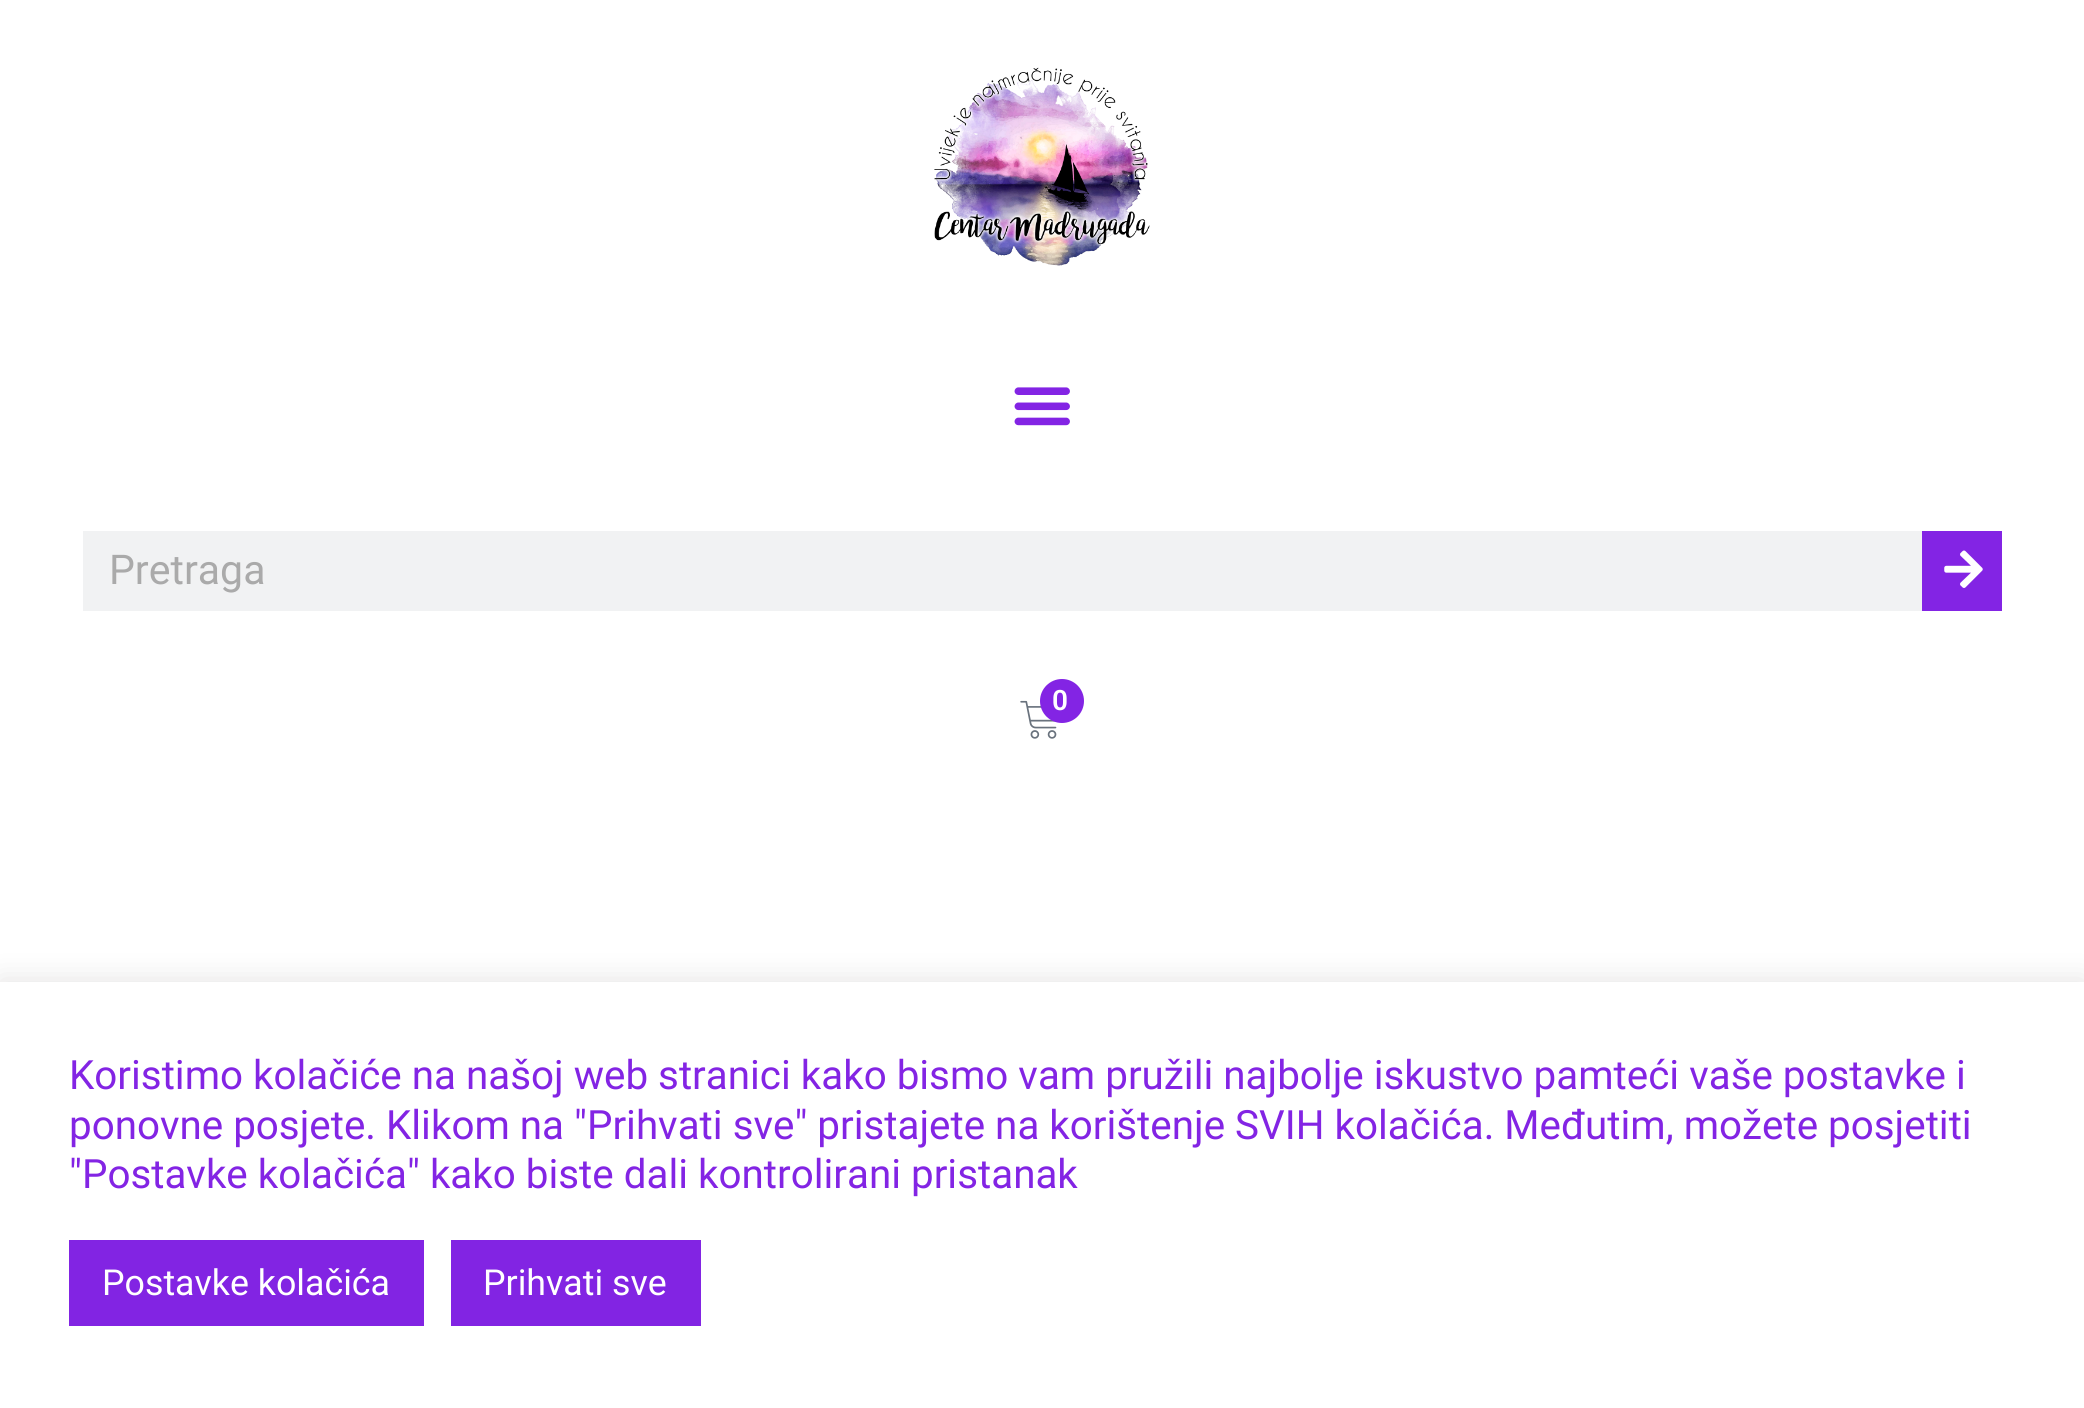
#include <cairo.h>
#include <math.h>
#include <stddef.h>

typedef struct { double x, y; const char *s; } line_t;

static void ink(cairo_t *ctx, unsigned color) {
    cairo_set_source_rgb(ctx, (color >> 16) / 255.0, (color >> 8 & 255) / 255.0, (color & 255) / 255.0);
}

static void round_path(cairo_t *ctx, double x, double y, double w, double h, double r) {
    cairo_new_sub_path(ctx);
    cairo_arc(ctx, x + w - r, y + h - r, r, 0, M_PI / 2);
    cairo_arc(ctx, x + r, y + h - r, r, M_PI / 2, M_PI);
    cairo_arc(ctx, x + r, y + r, r, M_PI, 1.5 * M_PI);
    cairo_arc(ctx, x + w - r, y + r, r, 1.5 * M_PI, 2 * M_PI);
    cairo_close_path(ctx);
}

static void blur_box(cairo_t *ctx, double x, double y, double w, double h, double r, double blur, double alpha) {
    cairo_push_group_with_content(ctx, CAIRO_CONTENT_ALPHA);
    cairo_set_operator(ctx, CAIRO_OPERATOR_SOURCE);
    for (int i = 15; i >= -15 && fmin(w, h) + blur * i / 3 > 0; i -= 2) {
        double e = blur * i / 6;
        cairo_set_source_rgba(ctx, 0, 0, 0, alpha * erfc((i - 1) / 8.5) / 2);
        round_path(ctx, x - e, y - e, w + 2 * e, h + 2 * e, fmax(0, fmin(r + e + blur * .6, fmin(w, h) / 2 + e)));
        cairo_fill(ctx);
    }
    cairo_pattern_t *soft = cairo_pop_group(ctx);
    cairo_mask(ctx, soft);
    cairo_pattern_destroy(soft);
}

static void paste(cairo_t *ctx, const char *path, double x, double y, double w, double h) {
    cairo_surface_t *image = cairo_image_surface_create_from_png(path);
    cairo_save(ctx);
    cairo_set_source_surface(ctx, image, x, y);
    cairo_rectangle(ctx, x, y, w, h);
    cairo_fill(ctx);
    cairo_restore(ctx);
    cairo_surface_destroy(image);
}

int main(void) {
    cairo_surface_t *surface = cairo_image_surface_create(CAIRO_FORMAT_RGB24, 2084, 1408);
    cairo_t *ctx = cairo_create(surface);
    cairo_font_options_t *options = cairo_font_options_create();
    cairo_font_options_set_hint_metrics(options, CAIRO_HINT_METRICS_OFF);
    cairo_font_options_set_hint_style(options, CAIRO_HINT_STYLE_NONE);
    cairo_set_font_options(ctx, options);
    cairo_set_miter_limit(ctx, 4);
    ink(ctx, 0xFFFFFF);
    cairo_paint(ctx);
    paste(ctx, "media/1.png", 934, 67, 216, 199);
    paste(ctx, "media/2.png", 1014, 387, 56, 39);
    ink(ctx, 0xF1F2F3);
    cairo_rectangle(ctx, 83, 531, 1839, 80);
    cairo_fill(ctx);
    cairo_select_font_face(ctx, "Roboto", CAIRO_FONT_SLANT_NORMAL, CAIRO_FONT_WEIGHT_NORMAL);
    cairo_set_font_size(ctx, 41);
    ink(ctx, 0xAAAAAA);
    cairo_move_to(ctx, 109, 584);
    cairo_show_text(ctx, "Pretraga");
    ink(ctx, 0x8324E4);
    cairo_rectangle(ctx, 1922, 531, 80, 80);
    cairo_fill(ctx);
    paste(ctx, "media/3.png", 1944, 550, 39, 38);
    paste(ctx, "media/4.png", 1020, 700, 37, 39);
    cairo_arc(ctx, 1062, 701, 22, 0, 2 * M_PI);
    cairo_fill(ctx);
    cairo_select_font_face(ctx, "Roboto SemiBold", CAIRO_FONT_SLANT_NORMAL, CAIRO_FONT_WEIGHT_NORMAL);
    cairo_set_font_size(ctx, 28);
    ink(ctx, 0xFFFFFF);
    cairo_move_to(ctx, 1052, 710);
    cairo_show_text(ctx, "0");
    ink(ctx, 0xACABAB);
    blur_box(ctx, 0, 979, 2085, 426, 0, 14, 0.3);
    ink(ctx, 0xFFFFFF);
    cairo_rectangle(ctx, 0, 982, 2084, 426);
    cairo_fill(ctx);
    cairo_select_font_face(ctx, "Roboto", CAIRO_FONT_SLANT_NORMAL, CAIRO_FONT_WEIGHT_NORMAL);
    cairo_set_font_size(ctx, 40.35);
    ink(ctx, 0x8324E4);
    {
        static const line_t items[] = {
            {69, 1089, "Koristimo kolačiće na našoj web stranici kako bismo vam pružili najbolje iskustvo pamteći vaše postavke i"},
            {69, 1139, "ponovne posjete. Klikom na \"Prihvati sve\" pristajete na korištenje SVIH kolačića. Međutim, možete posjetiti"},
            {69, 1188, "\"Postavke kolačića\" kako biste dali kontrolirani pristanak"},
        };
        for (size_t i = 0; i < sizeof items / sizeof *items; i++) {
            cairo_move_to(ctx, items[i].x, items[i].y);
            cairo_show_text(ctx, items[i].s);
        }
    }
    ink(ctx, 0x8224E3);
    cairo_rectangle(ctx, 69, 1240, 355, 86);
    cairo_fill(ctx);
    cairo_set_font_size(ctx, 35.75);
    ink(ctx, 0xFFFFFF);
    cairo_move_to(ctx, 102, 1295);
    cairo_show_text(ctx, "Postavke kolačića");
    ink(ctx, 0x8224E3);
    cairo_rectangle(ctx, 451, 1240, 250, 86);
    cairo_fill(ctx);
    ink(ctx, 0xFFFFFF);
    cairo_move_to(ctx, 483, 1295);
    cairo_show_text(ctx, "Prihvati sve");
    cairo_surface_write_to_png(surface, "image.png");
    cairo_font_options_destroy(options);
    cairo_destroy(ctx);
    cairo_surface_destroy(surface);
    return 0;
}
